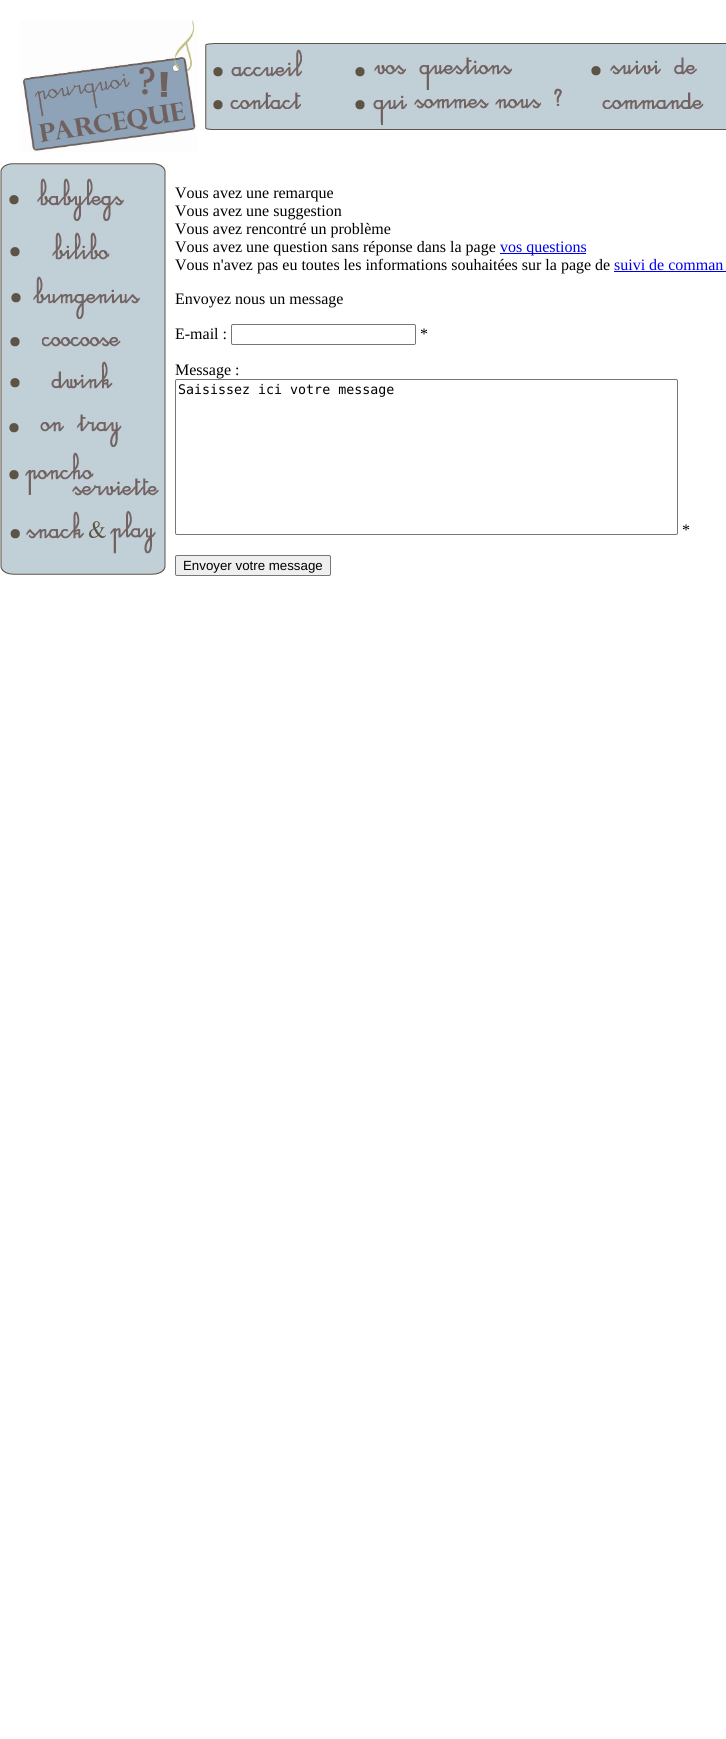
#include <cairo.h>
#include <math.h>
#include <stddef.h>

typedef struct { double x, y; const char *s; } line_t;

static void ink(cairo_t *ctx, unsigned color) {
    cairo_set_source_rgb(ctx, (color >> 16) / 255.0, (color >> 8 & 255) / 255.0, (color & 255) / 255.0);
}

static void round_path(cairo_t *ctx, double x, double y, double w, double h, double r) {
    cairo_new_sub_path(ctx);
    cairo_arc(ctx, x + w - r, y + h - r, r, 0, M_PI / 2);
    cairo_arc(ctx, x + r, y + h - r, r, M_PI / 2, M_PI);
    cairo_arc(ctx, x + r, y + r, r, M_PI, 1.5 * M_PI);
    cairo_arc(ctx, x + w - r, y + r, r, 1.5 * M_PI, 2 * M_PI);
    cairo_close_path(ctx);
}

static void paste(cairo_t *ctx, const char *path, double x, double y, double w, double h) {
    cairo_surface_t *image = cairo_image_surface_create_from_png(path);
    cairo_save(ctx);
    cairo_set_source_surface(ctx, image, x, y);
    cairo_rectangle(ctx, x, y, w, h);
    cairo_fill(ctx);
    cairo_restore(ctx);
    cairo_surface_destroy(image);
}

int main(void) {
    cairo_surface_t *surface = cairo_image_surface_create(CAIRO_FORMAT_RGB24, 726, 1739);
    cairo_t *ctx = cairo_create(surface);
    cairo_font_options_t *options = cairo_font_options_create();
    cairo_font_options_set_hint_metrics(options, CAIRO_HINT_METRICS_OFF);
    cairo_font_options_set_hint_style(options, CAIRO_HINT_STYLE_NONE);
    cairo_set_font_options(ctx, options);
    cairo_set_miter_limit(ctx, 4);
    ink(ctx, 0xFFFFFF);
    cairo_paint(ctx);
    paste(ctx, "media/1.png", 20, 20, 177, 132);
    paste(ctx, "media/2.png", 205, 43, 521, 87);
    paste(ctx, "media/3.png", 0, 163, 166, 412);
    cairo_select_font_face(ctx, "Liberation Serif", CAIRO_FONT_SLANT_NORMAL, CAIRO_FONT_WEIGHT_NORMAL);
    cairo_set_font_size(ctx, 16);
    ink(ctx, 0x000000);
    {
        static const line_t items[] = {
            {175, 198, "Vous avez une remarque"},
            {175, 216, "Vous avez une suggestion"},
            {175, 234, "Vous avez rencontré un problème"},
            {175, 252, "Vous avez une question sans réponse dans la page"},
        };
        for (size_t i = 0; i < sizeof items / sizeof *items; i++) {
            cairo_move_to(ctx, items[i].x, items[i].y);
            cairo_show_text(ctx, items[i].s);
        }
    }
    ink(ctx, 0x0000EE);
    cairo_rectangle(ctx, 500, 253, 86, 1);
    cairo_fill(ctx);
    cairo_move_to(ctx, 500, 252);
    cairo_show_text(ctx, "vos questions");
    ink(ctx, 0x000000);
    cairo_move_to(ctx, 175, 270);
    cairo_show_text(ctx, "Vous n'avez pas eu toutes les informations souhaitées sur la page de");
    ink(ctx, 0x0000EE);
    cairo_move_to(ctx, 614, 270);
    cairo_show_text(ctx, "suivi de comman");
    cairo_rectangle(ctx, 614, 271, 112, 1);
    cairo_fill(ctx);
    ink(ctx, 0x000000);
    cairo_move_to(ctx, 175, 304);
    cairo_show_text(ctx, "Envoyez nous un message");
    cairo_move_to(ctx, 175, 339);
    cairo_show_text(ctx, "E-mail :");
    round_path(ctx, 231.5, 324.5, 184, 20, 1.5);
    ink(ctx, 0x767676);
    cairo_set_line_width(ctx, 1);
    cairo_stroke(ctx);
    ink(ctx, 0x000000);
    cairo_move_to(ctx, 420, 339);
    cairo_show_text(ctx, "*");
    cairo_move_to(ctx, 175, 375);
    cairo_show_text(ctx, "Message :");
    round_path(ctx, 175.5, 379.5, 502, 155, 1.5);
    ink(ctx, 0x767676);
    cairo_stroke(ctx);
    cairo_select_font_face(ctx, "DejaVu Sans Mono", CAIRO_FONT_SLANT_NORMAL, CAIRO_FONT_WEIGHT_NORMAL);
    cairo_set_font_size(ctx, 13.3);
    ink(ctx, 0x000000);
    cairo_move_to(ctx, 178, 394);
    cairo_show_text(ctx, "Saisissez ici votre message");
    cairo_select_font_face(ctx, "Liberation Serif", CAIRO_FONT_SLANT_NORMAL, CAIRO_FONT_WEIGHT_NORMAL);
    cairo_set_font_size(ctx, 16);
    cairo_move_to(ctx, 682, 535);
    cairo_show_text(ctx, "*");
    ink(ctx, 0xEFEFEF);
    round_path(ctx, 175.5, 555.5, 155, 20, 1.5);
    cairo_fill_preserve(ctx);
    ink(ctx, 0x767676);
    cairo_stroke(ctx);
    cairo_select_font_face(ctx, "Liberation Sans", CAIRO_FONT_SLANT_NORMAL, CAIRO_FONT_WEIGHT_NORMAL);
    cairo_set_font_size(ctx, 13.3);
    ink(ctx, 0x000000);
    cairo_move_to(ctx, 183, 570);
    cairo_show_text(ctx, "Envoyer votre message");
    cairo_surface_write_to_png(surface, "image.png");
    cairo_font_options_destroy(options);
    cairo_destroy(ctx);
    cairo_surface_destroy(surface);
    return 0;
}
